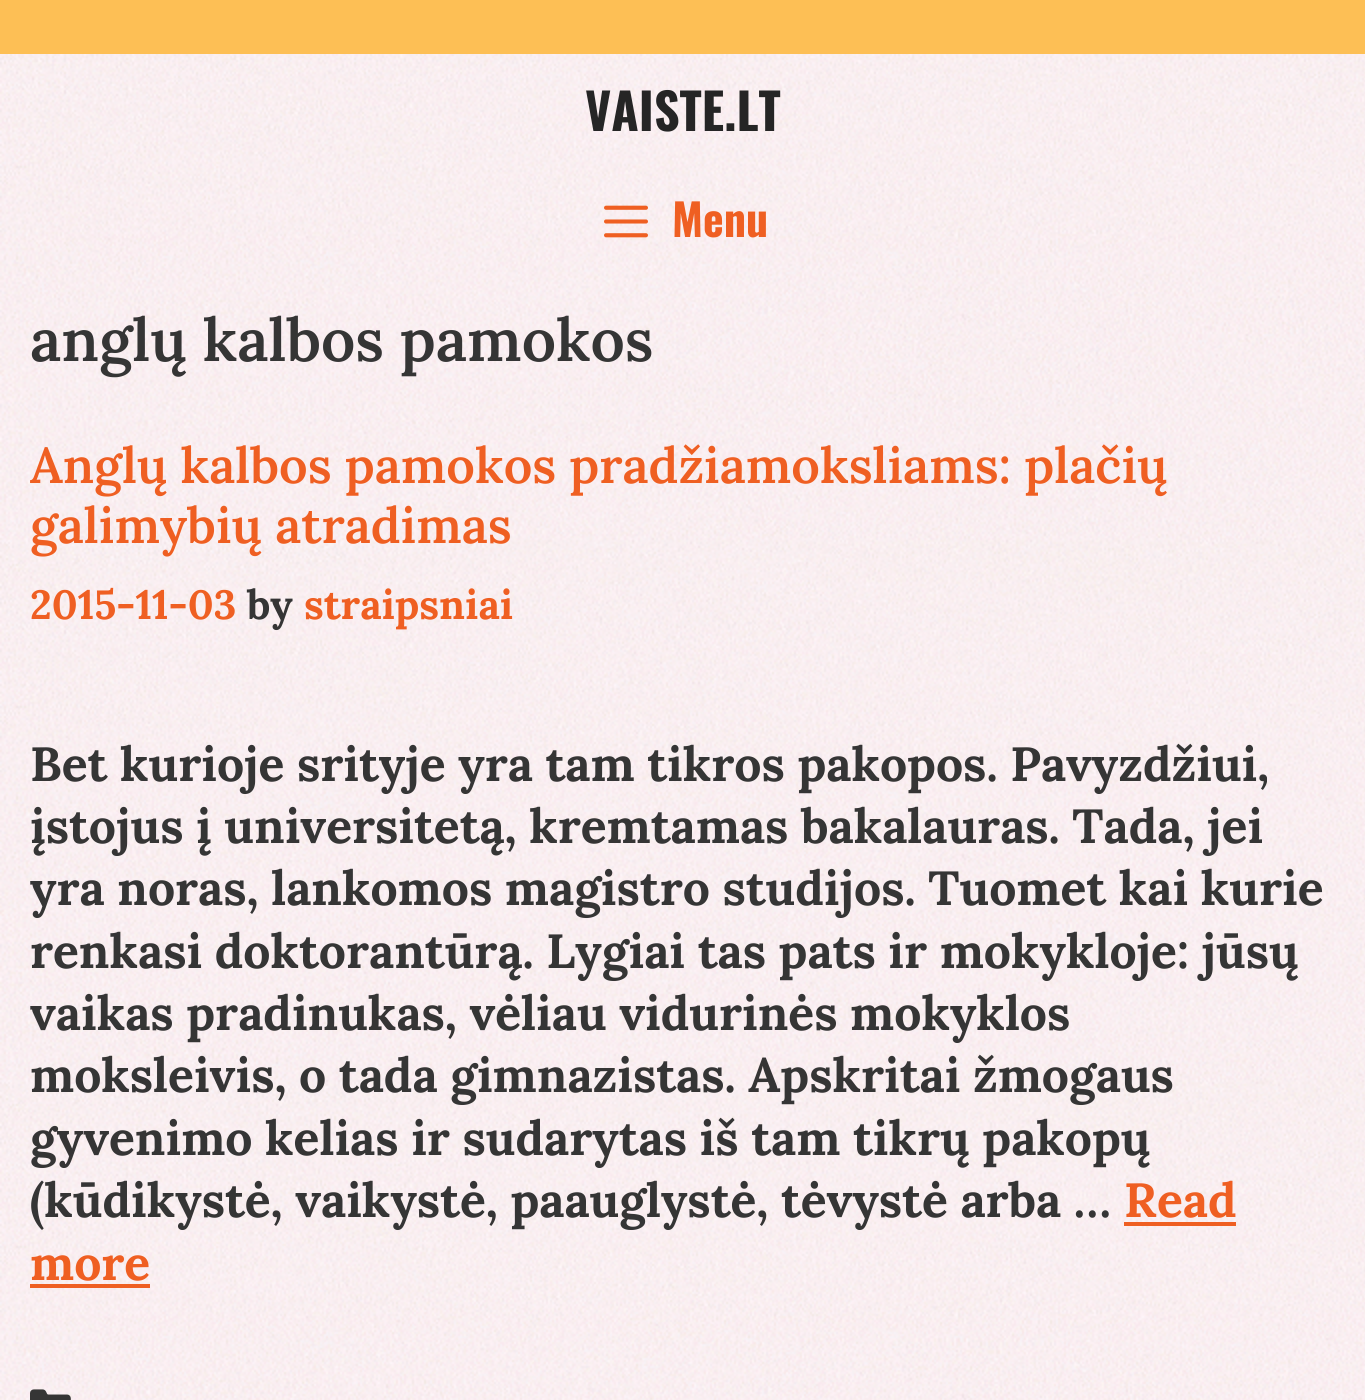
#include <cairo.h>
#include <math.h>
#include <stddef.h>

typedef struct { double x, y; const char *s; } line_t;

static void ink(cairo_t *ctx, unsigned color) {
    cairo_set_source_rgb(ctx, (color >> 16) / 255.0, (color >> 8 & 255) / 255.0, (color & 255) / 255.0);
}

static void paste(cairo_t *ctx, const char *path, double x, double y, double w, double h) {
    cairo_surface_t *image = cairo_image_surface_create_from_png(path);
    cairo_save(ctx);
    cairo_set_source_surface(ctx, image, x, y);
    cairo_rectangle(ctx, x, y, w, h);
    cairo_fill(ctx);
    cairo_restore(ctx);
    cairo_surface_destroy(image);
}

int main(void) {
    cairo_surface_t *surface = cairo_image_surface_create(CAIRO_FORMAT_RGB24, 1365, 1400);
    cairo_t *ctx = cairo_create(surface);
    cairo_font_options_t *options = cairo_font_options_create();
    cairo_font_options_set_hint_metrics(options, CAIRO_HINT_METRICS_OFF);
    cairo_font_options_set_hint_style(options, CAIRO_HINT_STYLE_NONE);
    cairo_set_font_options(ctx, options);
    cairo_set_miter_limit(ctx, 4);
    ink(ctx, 0xFFFFFF);
    cairo_paint(ctx);
    paste(ctx, "media/1.png", 0, 54, 1365, 1346);
    ink(ctx, 0xFDBF55);
    cairo_rectangle(ctx, 0, 0, 1365, 54);
    cairo_fill(ctx);
    cairo_select_font_face(ctx, "Oswald", CAIRO_FONT_SLANT_NORMAL, CAIRO_FONT_WEIGHT_BOLD);
    cairo_set_font_size(ctx, 50);
    ink(ctx, 0x252525);
    cairo_move_to(ctx, 585, 131);
    cairo_show_text(ctx, "VAISTE.LT");
    paste(ctx, "media/2.png", 604, 205, 44, 33);
    cairo_set_font_size(ctx, 44);
    ink(ctx, 0xEF5F22);
    cairo_move_to(ctx, 672, 237);
    cairo_show_text(ctx, "Menu");
    cairo_select_font_face(ctx, "Lora SemiBold", CAIRO_FONT_SLANT_NORMAL, CAIRO_FONT_WEIGHT_NORMAL);
    cairo_set_font_size(ctx, 60);
    ink(ctx, 0x353535);
    cairo_move_to(ctx, 30, 361);
    cairo_show_text(ctx, "anglų kalbos pamokos");
    cairo_set_font_size(ctx, 50);
    ink(ctx, 0xEF5F22);
    cairo_move_to(ctx, 30, 483);
    cairo_show_text(ctx, "Anglų kalbos pamokos pradžiamoksliams: plačių");
    cairo_move_to(ctx, 30, 543);
    cairo_show_text(ctx, "galimybių atradimas");
    cairo_select_font_face(ctx, "Lora", CAIRO_FONT_SLANT_NORMAL, CAIRO_FONT_WEIGHT_BOLD);
    cairo_set_font_size(ctx, 40.75);
    cairo_move_to(ctx, 30, 619);
    cairo_show_text(ctx, "2015-11-03");
    ink(ctx, 0x353535);
    cairo_move_to(ctx, 247, 619);
    cairo_show_text(ctx, "by");
    ink(ctx, 0xEF5F22);
    cairo_move_to(ctx, 304, 619);
    cairo_show_text(ctx, "straipsniai");
    cairo_set_font_size(ctx, 48);
    ink(ctx, 0x353535);
    {
        static const line_t items[] = {
            {30, 781, "Bet kurioje srityje yra tam tikros pakopos. Pavyzdžiui,"},
            {30, 843, "įstojus į universitetą, kremtamas bakalauras. Tada, jei"},
            {30, 905, "yra noras, lankomos magistro studijos. Tuomet kai kurie"},
            {30, 968, "renkasi doktorantūrą. Lygiai tas pats ir mokykloje: jūsų"},
            {30, 1030, "vaikas pradinukas, vėliau vidurinės mokyklos"},
            {30, 1092, "moksleivis, o tada gimnazistas. Apskritai žmogaus"},
            {30, 1155, "gyvenimo kelias ir sudarytas iš tam tikrų pakopų"},
            {30, 1217, "(kūdikystė, vaikystė, paauglystė, tėvystė arba …"},
        };
        for (size_t i = 0; i < sizeof items / sizeof *items; i++) {
            cairo_move_to(ctx, items[i].x, items[i].y);
            cairo_show_text(ctx, items[i].s);
        }
    }
    ink(ctx, 0xEF5F22);
    cairo_move_to(ctx, 1124, 1217);
    cairo_show_text(ctx, "Read");
    cairo_rectangle(ctx, 1124, 1222, 112, 4);
    cairo_fill(ctx);
    cairo_move_to(ctx, 30, 1280);
    cairo_show_text(ctx, "more");
    cairo_rectangle(ctx, 30, 1284, 120, 4);
    cairo_fill(ctx);
    paste(ctx, "media/3.png", 30, 1389, 41, 11);
    cairo_surface_write_to_png(surface, "image.png");
    cairo_font_options_destroy(options);
    cairo_destroy(ctx);
    cairo_surface_destroy(surface);
    return 0;
}
